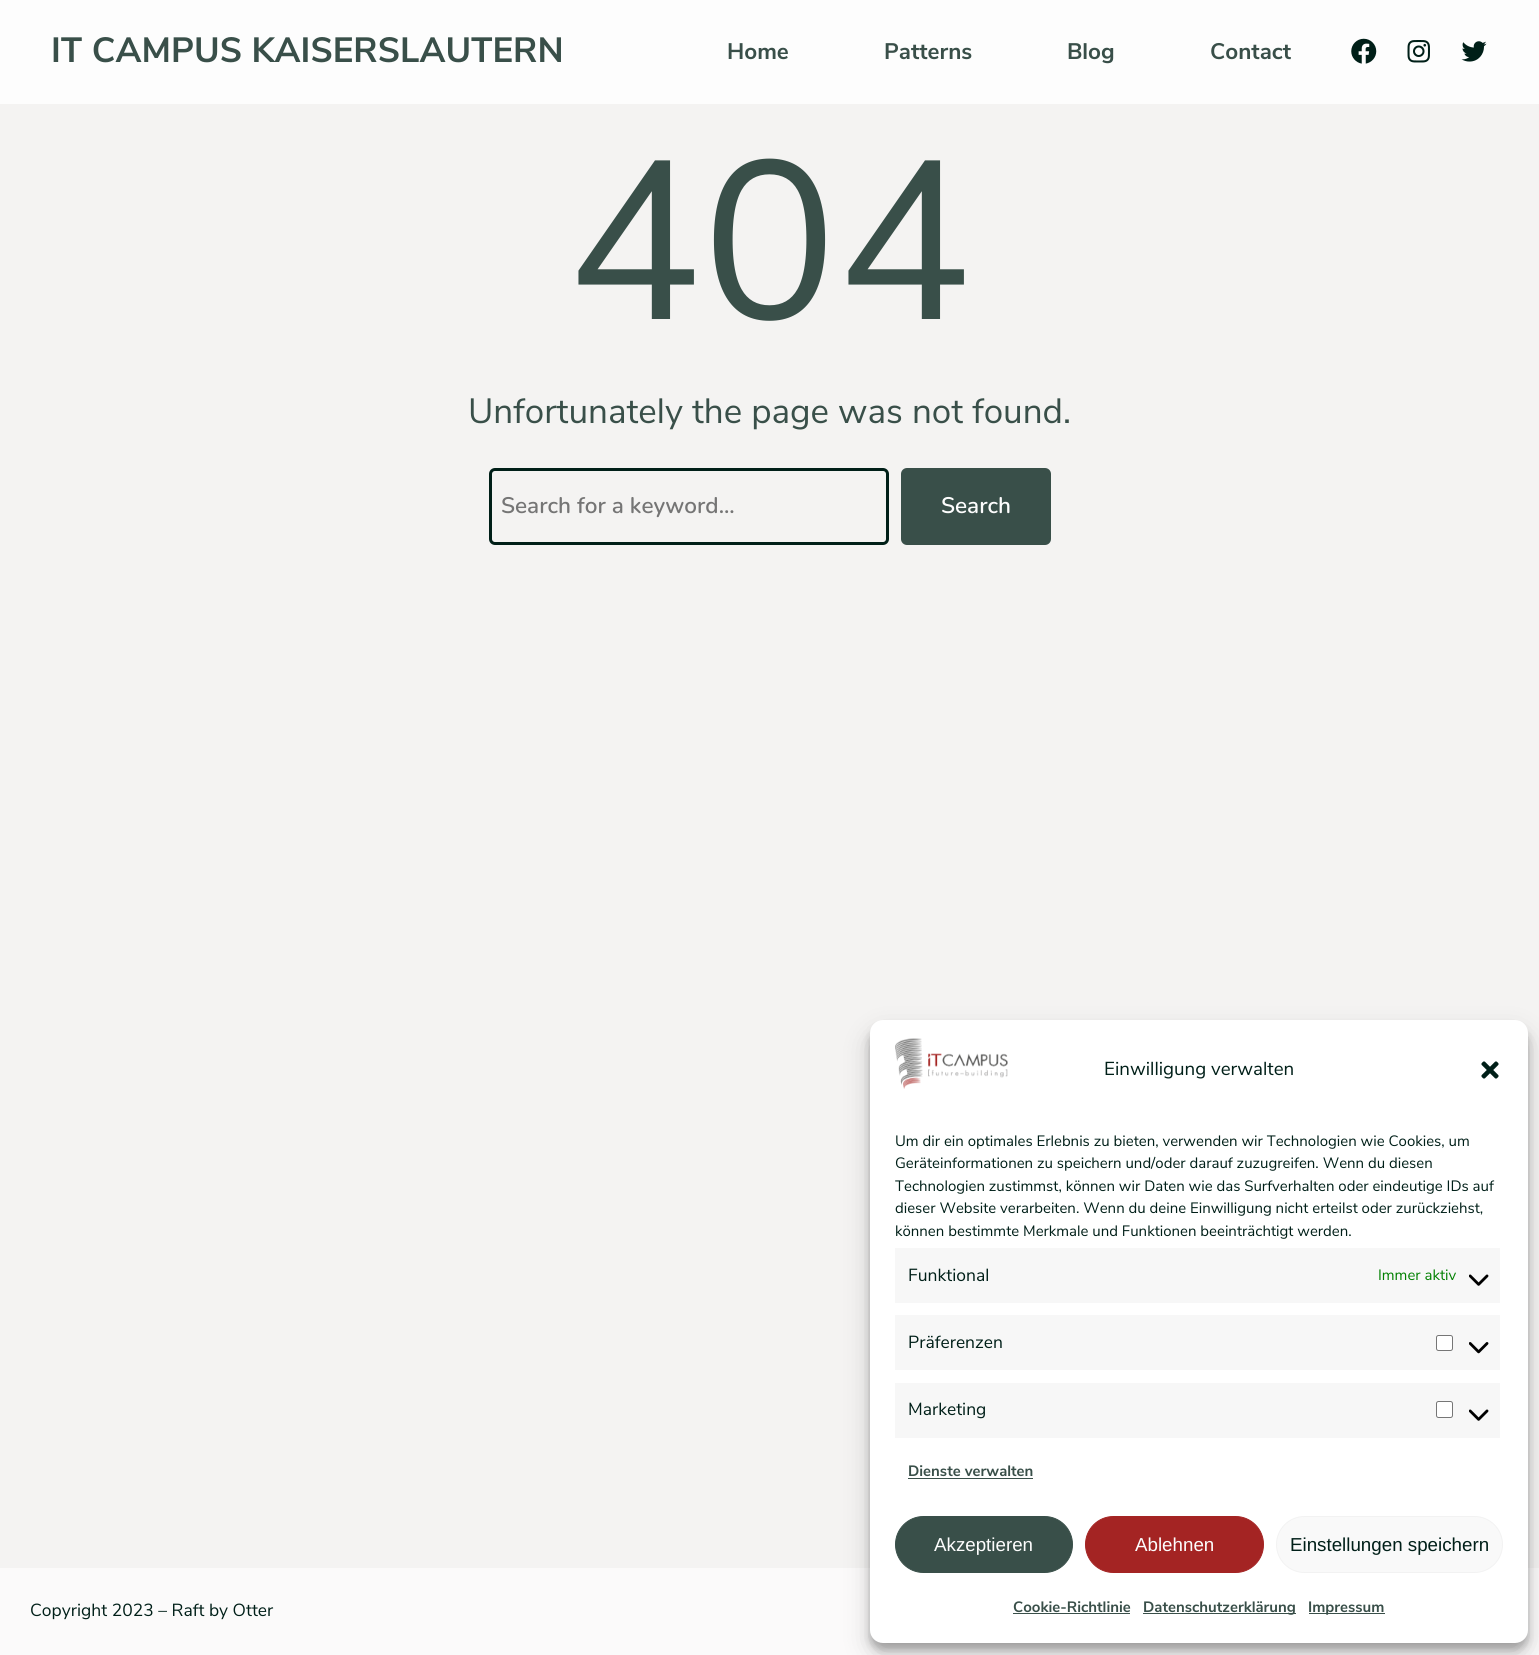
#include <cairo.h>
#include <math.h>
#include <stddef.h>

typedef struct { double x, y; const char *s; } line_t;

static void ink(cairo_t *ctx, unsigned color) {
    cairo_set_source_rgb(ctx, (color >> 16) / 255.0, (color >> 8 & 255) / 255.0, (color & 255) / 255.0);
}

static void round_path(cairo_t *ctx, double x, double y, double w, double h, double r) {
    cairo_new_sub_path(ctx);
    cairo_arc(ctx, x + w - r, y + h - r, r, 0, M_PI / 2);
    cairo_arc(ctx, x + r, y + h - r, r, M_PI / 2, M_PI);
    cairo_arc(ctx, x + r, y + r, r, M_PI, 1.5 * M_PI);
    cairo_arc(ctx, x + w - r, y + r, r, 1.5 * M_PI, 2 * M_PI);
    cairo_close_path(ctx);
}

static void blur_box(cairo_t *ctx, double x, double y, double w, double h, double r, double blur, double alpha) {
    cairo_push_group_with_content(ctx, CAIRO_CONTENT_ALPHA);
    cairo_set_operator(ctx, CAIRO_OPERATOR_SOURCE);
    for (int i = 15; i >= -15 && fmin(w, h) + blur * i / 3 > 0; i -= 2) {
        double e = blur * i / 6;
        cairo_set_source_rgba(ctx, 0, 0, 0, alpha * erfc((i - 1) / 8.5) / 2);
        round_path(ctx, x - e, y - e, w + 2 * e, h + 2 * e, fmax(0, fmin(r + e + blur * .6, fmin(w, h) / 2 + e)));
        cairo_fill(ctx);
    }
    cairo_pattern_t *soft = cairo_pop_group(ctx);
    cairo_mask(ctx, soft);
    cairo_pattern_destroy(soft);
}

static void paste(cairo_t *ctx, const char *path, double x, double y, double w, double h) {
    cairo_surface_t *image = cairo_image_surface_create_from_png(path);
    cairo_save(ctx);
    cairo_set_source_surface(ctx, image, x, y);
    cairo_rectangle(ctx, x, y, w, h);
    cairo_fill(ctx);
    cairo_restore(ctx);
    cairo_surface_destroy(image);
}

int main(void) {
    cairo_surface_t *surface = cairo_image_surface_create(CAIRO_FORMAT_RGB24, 1539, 1655);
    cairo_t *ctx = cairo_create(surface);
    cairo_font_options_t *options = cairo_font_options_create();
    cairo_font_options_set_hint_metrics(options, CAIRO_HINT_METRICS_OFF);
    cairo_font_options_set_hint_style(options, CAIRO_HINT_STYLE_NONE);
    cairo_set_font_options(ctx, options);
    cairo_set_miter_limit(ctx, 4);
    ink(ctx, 0xF4F3F2);
    cairo_paint(ctx);
    ink(ctx, 0xFDFDFD);
    cairo_rectangle(ctx, 0, 0, 1539, 104);
    cairo_fill(ctx);
    cairo_select_font_face(ctx, "Nunito Sans", CAIRO_FONT_SLANT_NORMAL, CAIRO_FONT_WEIGHT_BOLD);
    cairo_set_font_size(ctx, 35);
    ink(ctx, 0x394F49);
    cairo_move_to(ctx, 51, 62);
    cairo_show_text(ctx, "IT CAMPUS KAISERSLAUTERN");
    cairo_set_font_size(ctx, 22.5);
    {
        static const line_t items[] = {
            {727, 59, "Home"},
            {884, 59, "Patterns"},
            {1067, 59, "Blog"},
            {1210, 59, "Contact"},
        };
        for (size_t i = 0; i < sizeof items / sizeof *items; i++) {
            cairo_move_to(ctx, items[i].x, items[i].y);
            cairo_show_text(ctx, items[i].s);
        }
    }
    paste(ctx, "media/1.png", 1351, 38, 26, 26);
    paste(ctx, "media/2.png", 1407, 40, 23, 23);
    paste(ctx, "media/3.png", 1461, 41, 26, 21);
    cairo_select_font_face(ctx, "Nunito Sans", CAIRO_FONT_SLANT_NORMAL, CAIRO_FONT_WEIGHT_NORMAL);
    cairo_set_font_size(ctx, 225);
    cairo_move_to(ctx, 567, 319);
    cairo_show_text(ctx, "404");
    cairo_set_font_size(ctx, 35);
    cairo_move_to(ctx, 468, 423);
    cairo_show_text(ctx, "Unfortunately the page was not found.");
    round_path(ctx, 490.5, 469.5, 397, 74, 4.5);
    ink(ctx, 0x001F18);
    cairo_set_line_width(ctx, 3);
    cairo_stroke(ctx);
    cairo_select_font_face(ctx, "Nunito SemiBold", CAIRO_FONT_SLANT_NORMAL, CAIRO_FONT_WEIGHT_NORMAL);
    cairo_set_font_size(ctx, 22.5);
    ink(ctx, 0x757575);
    cairo_move_to(ctx, 501, 513);
    cairo_show_text(ctx, "Search for a keyword...");
    ink(ctx, 0x394F49);
    round_path(ctx, 901, 468, 150, 77, 6);
    cairo_fill(ctx);
    ink(ctx, 0xFDFDFD);
    cairo_move_to(ctx, 941, 513);
    cairo_show_text(ctx, "Search");
    ink(ctx, 0xFBFAFA);
    cairo_rectangle(ctx, 0, 1568, 1539, 87);
    cairo_fill(ctx);
    cairo_select_font_face(ctx, "Nunito Sans", CAIRO_FONT_SLANT_NORMAL, CAIRO_FONT_WEIGHT_NORMAL);
    cairo_set_font_size(ctx, 17.5);
    ink(ctx, 0x001F18);
    cairo_move_to(ctx, 30, 1616);
    cairo_show_text(ctx, "Copyright 2023 – Raft by Otter");
    ink(ctx, 0x000000);
    blur_box(ctx, 870, 1028, 658, 622, 13, 4, 0.23);
    blur_box(ctx, 870, 1033, 658, 622, 13, 12.5, 0.19);
    ink(ctx, 0xFFFFFF);
    round_path(ctx, 870, 1020, 658, 623, 13);
    cairo_fill(ctx);
    paste(ctx, "media/4.png", 895, 1038, 113, 51);
    cairo_set_font_size(ctx, 18.75);
    ink(ctx, 0x001F18);
    cairo_move_to(ctx, 1104, 1075);
    cairo_show_text(ctx, "Einwilligung verwalten");
    paste(ctx, "media/5.png", 1481, 1061, 18, 18);
    cairo_set_font_size(ctx, 15);
    {
        static const line_t items[] = {
            {895, 1146, "Um dir ein optimales Erlebnis zu bieten, verwenden wir Technologien wie Cookies, um"},
            {895, 1168, "Geräteinformationen zu speichern und/oder darauf zuzugreifen. Wenn du diesen"},
            {895, 1191, "Technologien zustimmst, können wir Daten wie das Surfverhalten oder eindeutige IDs auf"},
            {895, 1213, "dieser Website verarbeiten. Wenn du deine Einwilligung nicht erteilst oder zurückziehst,"},
            {895, 1236, "können bestimmte Merkmale und Funktionen beeinträchtigt werden."},
        };
        for (size_t i = 0; i < sizeof items / sizeof *items; i++) {
            cairo_move_to(ctx, items[i].x, items[i].y);
            cairo_show_text(ctx, items[i].s);
        }
    }
    ink(ctx, 0xF7F7F7);
    cairo_rectangle(ctx, 895, 1248, 605, 55);
    cairo_fill(ctx);
    cairo_set_font_size(ctx, 17.5);
    ink(ctx, 0x001F18);
    cairo_move_to(ctx, 908, 1281);
    cairo_show_text(ctx, "Funktional");
    cairo_set_font_size(ctx, 15);
    ink(ctx, 0x008000);
    cairo_move_to(ctx, 1378, 1280);
    cairo_show_text(ctx, "Immer aktiv");
    paste(ctx, "media/6.png", 1469, 1274, 20, 12);
    ink(ctx, 0xF7F7F7);
    cairo_rectangle(ctx, 895, 1315, 605, 55);
    cairo_fill(ctx);
    cairo_set_font_size(ctx, 17.5);
    ink(ctx, 0x001F18);
    cairo_move_to(ctx, 908, 1348);
    cairo_show_text(ctx, "Präferenzen");
    ink(ctx, 0xFFFFFF);
    round_path(ctx, 1436.5, 1335.5, 16, 15, 2);
    cairo_fill_preserve(ctx);
    ink(ctx, 0x767676);
    cairo_set_line_width(ctx, 1);
    cairo_stroke(ctx);
    paste(ctx, "media/7.png", 1469, 1342, 20, 12);
    ink(ctx, 0xF7F7F7);
    cairo_rectangle(ctx, 895, 1383, 605, 55);
    cairo_fill(ctx);
    ink(ctx, 0x001F18);
    cairo_move_to(ctx, 908, 1415);
    cairo_show_text(ctx, "Marketing");
    ink(ctx, 0xFFFFFF);
    round_path(ctx, 1436.5, 1401.5, 16, 16, 2);
    cairo_fill_preserve(ctx);
    ink(ctx, 0x767676);
    cairo_stroke(ctx);
    paste(ctx, "media/6.png", 1469, 1409, 20, 12);
    cairo_select_font_face(ctx, "Nunito Sans", CAIRO_FONT_SLANT_NORMAL, CAIRO_FONT_WEIGHT_BOLD);
    cairo_set_font_size(ctx, 15);
    ink(ctx, 0x394F49);
    cairo_move_to(ctx, 908, 1476);
    cairo_show_text(ctx, "Dienste verwalten");
    cairo_rectangle(ctx, 908, 1478, 125, 1);
    cairo_fill(ctx);
    round_path(ctx, 895.5, 1516.5, 177, 56, 28);
    cairo_fill_preserve(ctx);
    cairo_stroke(ctx);
    cairo_select_font_face(ctx, "Liberation Sans", CAIRO_FONT_SLANT_NORMAL, CAIRO_FONT_WEIGHT_NORMAL);
    cairo_set_font_size(ctx, 18.75);
    ink(ctx, 0xFDFDFD);
    cairo_move_to(ctx, 934, 1551);
    cairo_show_text(ctx, "Akzeptieren");
    ink(ctx, 0xA42423);
    round_path(ctx, 1085.5, 1516.5, 178, 56, 28);
    cairo_fill_preserve(ctx);
    cairo_stroke(ctx);
    ink(ctx, 0xFDFDFD);
    cairo_move_to(ctx, 1135, 1551);
    cairo_show_text(ctx, "Ablehnen");
    ink(ctx, 0xF9F9F9);
    round_path(ctx, 1276.5, 1516.5, 226, 56, 28);
    cairo_fill_preserve(ctx);
    ink(ctx, 0xF2F2F2);
    cairo_stroke(ctx);
    ink(ctx, 0x001F18);
    cairo_move_to(ctx, 1290, 1551);
    cairo_show_text(ctx, "Einstellungen speichern");
    cairo_select_font_face(ctx, "Nunito Sans", CAIRO_FONT_SLANT_NORMAL, CAIRO_FONT_WEIGHT_BOLD);
    cairo_set_font_size(ctx, 15);
    ink(ctx, 0x394F49);
    cairo_move_to(ctx, 1013, 1612);
    cairo_show_text(ctx, "Cookie-Richtlinie");
    cairo_rectangle(ctx, 1013, 1613, 117, 1);
    cairo_fill(ctx);
    cairo_rectangle(ctx, 1143, 1613, 153, 1);
    cairo_fill(ctx);
    cairo_move_to(ctx, 1143, 1612);
    cairo_show_text(ctx, "Datenschutzerklärung");
    cairo_rectangle(ctx, 1309, 1613, 76, 1);
    cairo_fill(ctx);
    cairo_move_to(ctx, 1308, 1612);
    cairo_show_text(ctx, "Impressum");
    cairo_surface_write_to_png(surface, "image.png");
    cairo_font_options_destroy(options);
    cairo_destroy(ctx);
    cairo_surface_destroy(surface);
    return 0;
}
